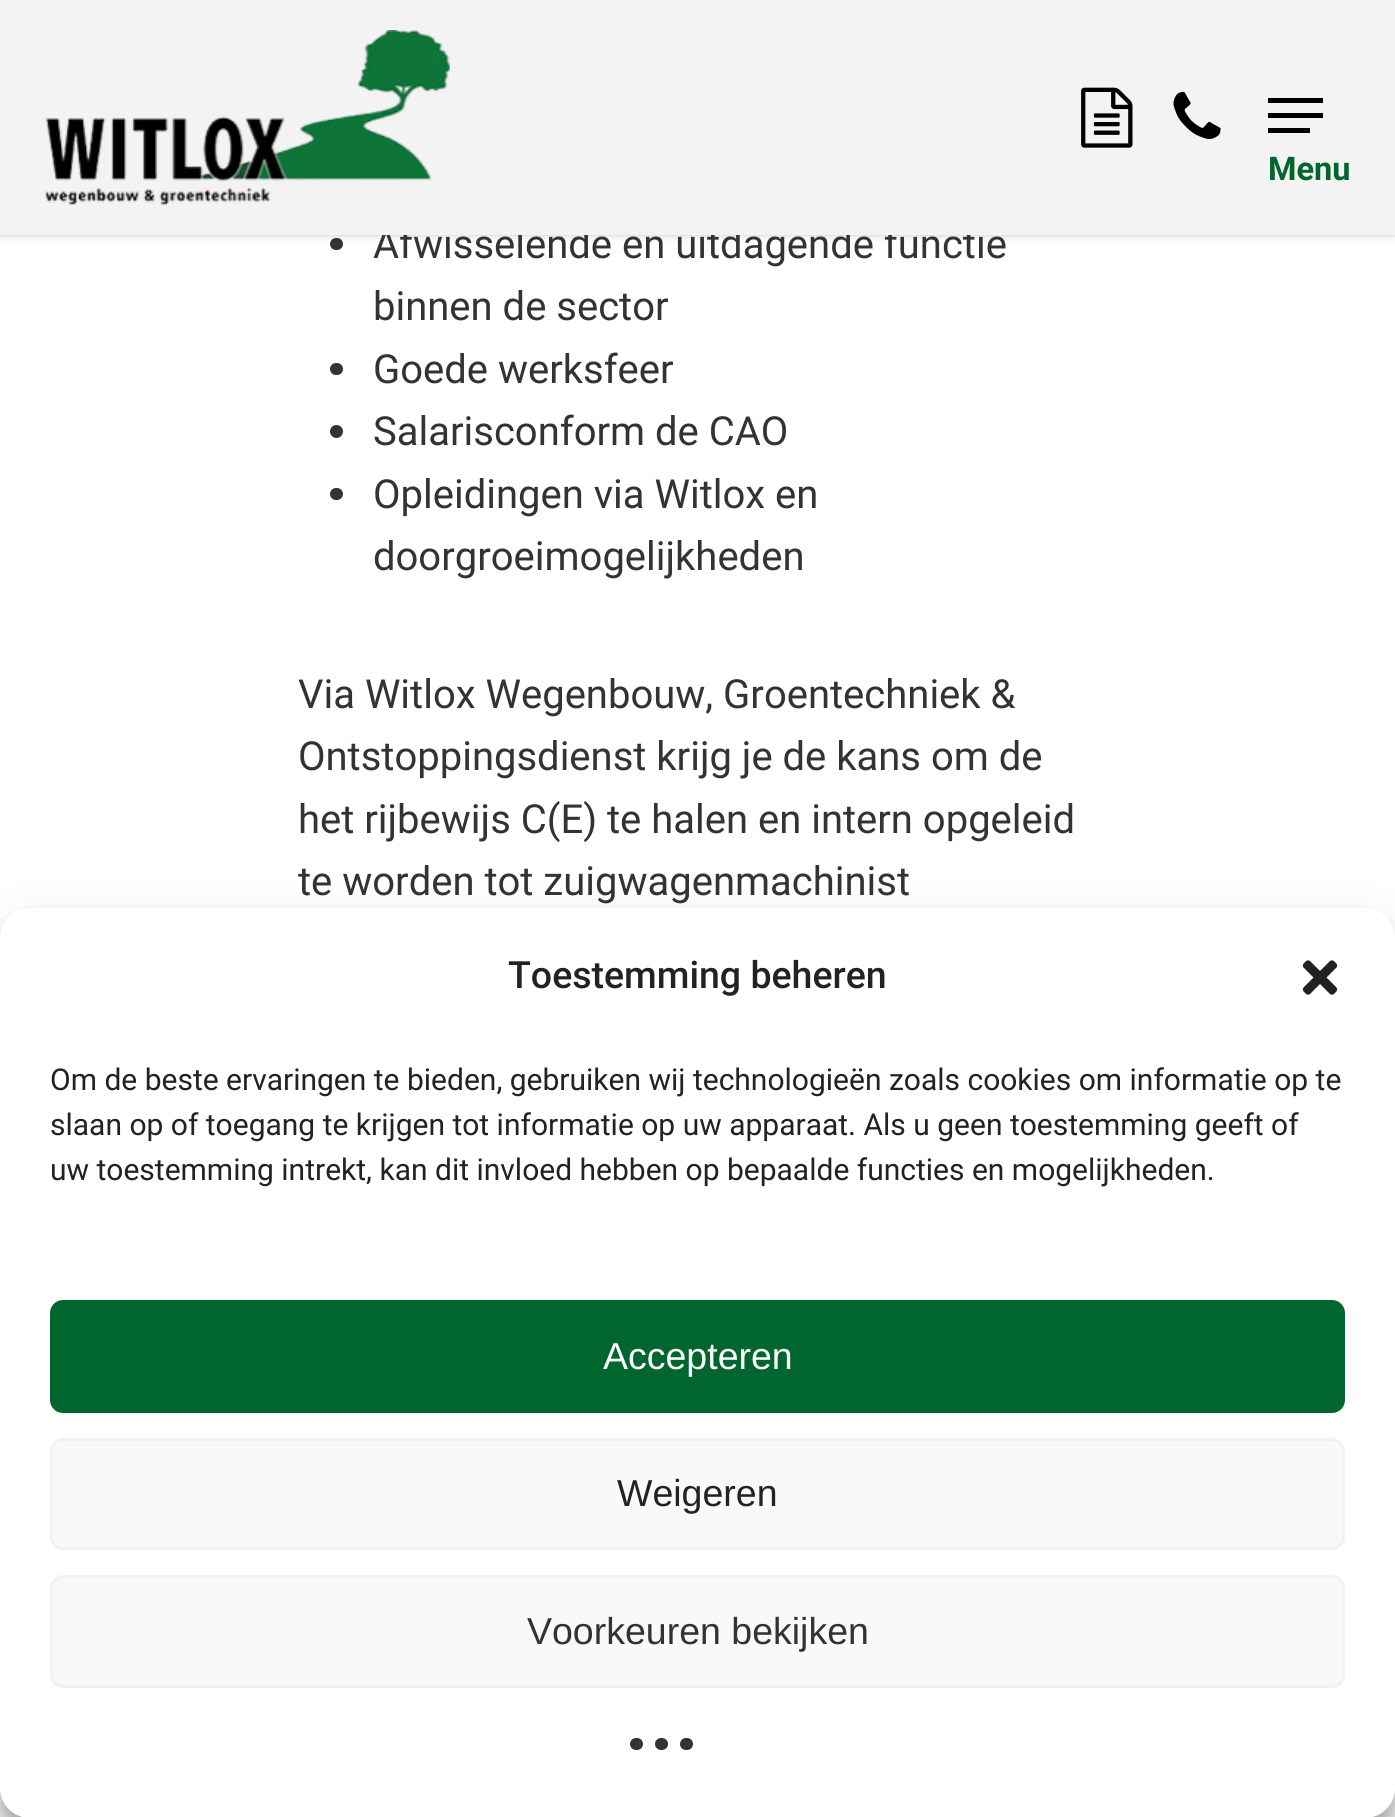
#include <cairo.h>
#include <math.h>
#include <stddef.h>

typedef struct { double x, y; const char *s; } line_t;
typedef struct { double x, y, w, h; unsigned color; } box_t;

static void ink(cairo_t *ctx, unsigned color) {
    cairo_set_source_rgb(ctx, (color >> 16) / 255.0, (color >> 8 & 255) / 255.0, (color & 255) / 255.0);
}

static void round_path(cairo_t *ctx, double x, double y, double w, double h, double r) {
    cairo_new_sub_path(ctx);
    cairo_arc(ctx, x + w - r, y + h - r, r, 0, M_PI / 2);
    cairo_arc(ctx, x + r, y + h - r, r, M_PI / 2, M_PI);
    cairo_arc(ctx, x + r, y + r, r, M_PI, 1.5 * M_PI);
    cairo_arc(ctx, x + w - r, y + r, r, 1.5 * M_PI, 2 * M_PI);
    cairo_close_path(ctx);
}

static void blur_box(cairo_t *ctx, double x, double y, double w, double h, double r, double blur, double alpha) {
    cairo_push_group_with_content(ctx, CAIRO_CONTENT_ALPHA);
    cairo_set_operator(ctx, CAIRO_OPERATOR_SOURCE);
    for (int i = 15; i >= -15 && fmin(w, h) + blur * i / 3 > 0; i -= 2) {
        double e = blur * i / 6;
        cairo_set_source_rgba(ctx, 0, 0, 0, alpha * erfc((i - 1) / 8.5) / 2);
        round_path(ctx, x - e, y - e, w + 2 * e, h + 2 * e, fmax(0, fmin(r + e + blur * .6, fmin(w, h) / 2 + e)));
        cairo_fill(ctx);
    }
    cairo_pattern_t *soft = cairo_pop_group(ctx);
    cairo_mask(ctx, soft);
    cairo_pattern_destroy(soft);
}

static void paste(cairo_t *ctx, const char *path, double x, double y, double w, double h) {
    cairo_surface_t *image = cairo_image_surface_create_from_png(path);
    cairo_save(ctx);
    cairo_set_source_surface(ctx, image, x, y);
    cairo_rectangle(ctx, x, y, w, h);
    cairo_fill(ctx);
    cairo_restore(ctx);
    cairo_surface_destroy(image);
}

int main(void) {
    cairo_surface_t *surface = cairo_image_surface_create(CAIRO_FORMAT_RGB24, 1395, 1817);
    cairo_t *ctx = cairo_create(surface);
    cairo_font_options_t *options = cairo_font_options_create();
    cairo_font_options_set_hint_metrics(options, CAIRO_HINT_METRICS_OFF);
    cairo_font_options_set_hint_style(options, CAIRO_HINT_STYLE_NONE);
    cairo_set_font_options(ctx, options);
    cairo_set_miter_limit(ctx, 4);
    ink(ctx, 0xFFFFFF);
    cairo_paint(ctx);
    ink(ctx, 0x333333);
    round_path(ctx, 330, 238, 13, 12, 6);
    cairo_fill(ctx);
    ink(ctx, 0x000000);
    blur_box(ctx, 0, 0, 1395, 235, 0, 4, 0.22);
    cairo_select_font_face(ctx, "Roboto", CAIRO_FONT_SLANT_NORMAL, CAIRO_FONT_WEIGHT_NORMAL);
    cairo_set_font_size(ctx, 40);
    ink(ctx, 0x333333);
    cairo_move_to(ctx, 373, 258);
    cairo_show_text(ctx, "Afwisselende en uitdagende functie");
    ink(ctx, 0xF3F3F3);
    cairo_rectangle(ctx, 0, 0, 1395, 235);
    cairo_fill(ctx);
    paste(ctx, "media/1.png", 45, 30, 405, 175);
    paste(ctx, "media/2.png", 1081, 87, 52, 61);
    paste(ctx, "media/3.png", 1173, 91, 48, 48);
    {
        static const box_t items[] = {
            {1268, 98, 55, 5, 0x000000},
            {1268, 128, 42, 5, 0x000000},
            {1268, 113, 55, 5, 0x000000},
        };
        for (size_t i = 0; i < sizeof items / sizeof *items; i++) {
            ink(ctx, items[i].color);
            cairo_rectangle(ctx, items[i].x, items[i].y, items[i].w, items[i].h);
            cairo_fill(ctx);
        }
    }
    cairo_select_font_face(ctx, "Roboto", CAIRO_FONT_SLANT_NORMAL, CAIRO_FONT_WEIGHT_BOLD);
    cairo_set_font_size(ctx, 32.5);
    ink(ctx, 0x01662E);
    cairo_move_to(ctx, 1268, 180);
    cairo_show_text(ctx, "Menu");
    cairo_select_font_face(ctx, "Roboto", CAIRO_FONT_SLANT_NORMAL, CAIRO_FONT_WEIGHT_NORMAL);
    cairo_set_font_size(ctx, 40);
    ink(ctx, 0x333333);
    cairo_move_to(ctx, 373, 320);
    cairo_show_text(ctx, "binnen de sector");
    round_path(ctx, 330, 363, 13, 12, 6);
    cairo_fill(ctx);
    cairo_move_to(ctx, 373, 383);
    cairo_show_text(ctx, "Goede werksfeer");
    cairo_new_path(ctx);
    cairo_arc(ctx, 336.5, 431.5, 6.5, 0, 2 * M_PI);
    cairo_fill(ctx);
    cairo_move_to(ctx, 373, 445);
    cairo_show_text(ctx, "Salarisconform de CAO");
    round_path(ctx, 330, 488, 13, 12, 6);
    cairo_fill(ctx);
    {
        static const line_t items[] = {
            {373, 508, "Opleidingen via Witlox en"},
            {373, 570, "doorgroeimogelijkheden"},
            {298, 708, "Via Witlox Wegenbouw, Groentechniek &"},
            {298, 770, "Ontstoppingsdienst krijg je de kans om de"},
            {298, 833, "het rijbewijs C(E) te halen en intern opgeleid"},
            {298, 895, "te worden tot zuigwagenmachinist"},
        };
        for (size_t i = 0; i < sizeof items / sizeof *items; i++) {
            cairo_move_to(ctx, items[i].x, items[i].y);
            cairo_show_text(ctx, items[i].s);
        }
    }
    ink(ctx, 0x000000);
    blur_box(ctx, 0, 923, 1395, 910, 30, 7.5, 0.23);
    blur_box(ctx, 0, 933, 1395, 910, 30, 25, 0.19);
    ink(ctx, 0x808080);
    blur_box(ctx, 1220, 1633, 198, 150, 5, 6, 1);
    ink(ctx, 0xFFFFFF);
    round_path(ctx, 0, 908, 1395, 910, 30);
    cairo_fill(ctx);
    cairo_select_font_face(ctx, "Roboto Medium", CAIRO_FONT_SLANT_NORMAL, CAIRO_FONT_WEIGHT_NORMAL);
    cairo_set_font_size(ctx, 37.5);
    ink(ctx, 0x222222);
    cairo_move_to(ctx, 508, 988);
    cairo_show_text(ctx, "Toestemming beheren");
    paste(ctx, "media/4.png", 1302, 960, 36, 35);
    cairo_select_font_face(ctx, "Roboto", CAIRO_FONT_SLANT_NORMAL, CAIRO_FONT_WEIGHT_NORMAL);
    cairo_set_font_size(ctx, 30);
    {
        static const line_t items[] = {
            {50, 1090, "Om de beste ervaringen te bieden, gebruiken wij technologieën zoals cookies om informatie op te"},
            {50, 1135, "slaan op of toegang te krijgen tot informatie op uw apparaat. Als u geen toestemming geeft of"},
            {50, 1180, "uw toestemming intrekt, kan dit invloed hebben op bepaalde functies en mogelijkheden."},
        };
        for (size_t i = 0; i < sizeof items / sizeof *items; i++) {
            cairo_move_to(ctx, items[i].x, items[i].y);
            cairo_show_text(ctx, items[i].s);
        }
    }
    ink(ctx, 0x01662E);
    round_path(ctx, 51.5, 1301.5, 1292, 110, 11.5);
    cairo_fill_preserve(ctx);
    cairo_set_line_width(ctx, 3);
    cairo_stroke(ctx);
    cairo_select_font_face(ctx, "Liberation Sans", CAIRO_FONT_SLANT_NORMAL, CAIRO_FONT_WEIGHT_NORMAL);
    cairo_set_font_size(ctx, 37.5);
    ink(ctx, 0xFFFFFF);
    cairo_move_to(ctx, 603, 1369);
    cairo_show_text(ctx, "Accepteren");
    ink(ctx, 0xF9F9F9);
    round_path(ctx, 51.5, 1439.5, 1292, 109, 11.5);
    cairo_fill_preserve(ctx);
    ink(ctx, 0xF2F2F2);
    cairo_stroke(ctx);
    ink(ctx, 0x222222);
    cairo_move_to(ctx, 617, 1506);
    cairo_show_text(ctx, "Weigeren");
    ink(ctx, 0xF9F9F9);
    round_path(ctx, 51.5, 1576.5, 1292, 110, 11.5);
    cairo_fill_preserve(ctx);
    ink(ctx, 0xF2F2F2);
    cairo_stroke(ctx);
    ink(ctx, 0x333333);
    cairo_move_to(ctx, 527, 1644);
    cairo_show_text(ctx, "Voorkeuren bekijken");
    round_path(ctx, 630, 1738, 13, 12, 6);
    cairo_fill(ctx);
    round_path(ctx, 655, 1738, 13, 12, 6);
    cairo_fill(ctx);
    round_path(ctx, 680, 1738, 13, 12, 6);
    cairo_fill(ctx);
    cairo_surface_write_to_png(surface, "image.png");
    cairo_font_options_destroy(options);
    cairo_destroy(ctx);
    cairo_surface_destroy(surface);
    return 0;
}
